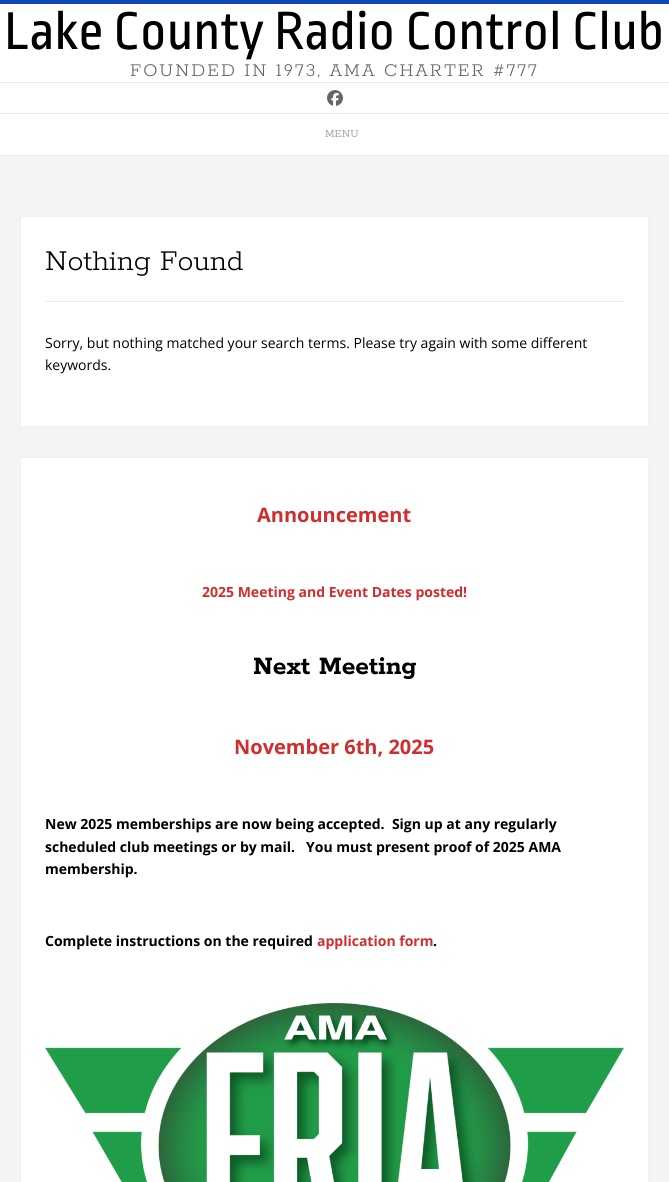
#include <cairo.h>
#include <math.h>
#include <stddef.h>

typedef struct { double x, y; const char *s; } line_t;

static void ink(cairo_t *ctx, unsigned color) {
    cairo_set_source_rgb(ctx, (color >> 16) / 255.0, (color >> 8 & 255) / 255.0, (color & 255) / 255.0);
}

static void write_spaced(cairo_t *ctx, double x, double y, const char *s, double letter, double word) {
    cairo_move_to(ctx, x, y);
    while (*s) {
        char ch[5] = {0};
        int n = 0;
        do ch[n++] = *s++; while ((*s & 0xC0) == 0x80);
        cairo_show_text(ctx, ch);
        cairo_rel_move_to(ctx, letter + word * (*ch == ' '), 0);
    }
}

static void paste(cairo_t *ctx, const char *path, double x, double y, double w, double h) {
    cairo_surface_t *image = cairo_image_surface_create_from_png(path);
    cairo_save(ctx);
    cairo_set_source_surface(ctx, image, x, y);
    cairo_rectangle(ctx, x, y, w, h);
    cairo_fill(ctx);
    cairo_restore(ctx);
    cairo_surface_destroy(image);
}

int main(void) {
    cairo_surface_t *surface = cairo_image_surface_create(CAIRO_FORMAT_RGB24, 669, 1182);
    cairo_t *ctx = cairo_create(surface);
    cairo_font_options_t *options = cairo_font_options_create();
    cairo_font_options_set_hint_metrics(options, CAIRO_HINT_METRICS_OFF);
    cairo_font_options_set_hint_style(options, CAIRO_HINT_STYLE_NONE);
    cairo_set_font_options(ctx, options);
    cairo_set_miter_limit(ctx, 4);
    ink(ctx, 0xF4F4F4);
    cairo_paint(ctx);
    ink(ctx, 0x0D49B7);
    cairo_rectangle(ctx, 0, 0, 669, 4);
    cairo_fill(ctx);
    ink(ctx, 0xFFFFFF);
    cairo_rectangle(ctx, 0, 4, 669, 151);
    cairo_fill(ctx);
    cairo_select_font_face(ctx, "Ropa Sans", CAIRO_FONT_SLANT_NORMAL, CAIRO_FONT_WEIGHT_NORMAL);
    cairo_set_font_size(ctx, 56);
    ink(ctx, 0x000000);
    cairo_move_to(ctx, 4, 49);
    cairo_show_text(ctx, "Lake County Radio Control Club");
    cairo_select_font_face(ctx, "Rokkitt Light", CAIRO_FONT_SLANT_NORMAL, CAIRO_FONT_WEIGHT_NORMAL);
    cairo_set_font_size(ctx, 20);
    ink(ctx, 0x656565);
    write_spaced(ctx, 130, 76, "FOUNDED IN 1973, AMA CHARTER #777", 2, 0);
    ink(ctx, 0xEBEBEB);
    cairo_rectangle(ctx, 0, 82, 669, 1);
    cairo_fill(ctx);
    paste(ctx, "media/1.png", 327, 90, 16, 16);
    cairo_rectangle(ctx, 0, 113, 669, 1);
    cairo_fill(ctx);
    cairo_rectangle(ctx, 0, 155, 669, 1);
    cairo_fill(ctx);
    cairo_select_font_face(ctx, "Rokkitt", CAIRO_FONT_SLANT_NORMAL, CAIRO_FONT_WEIGHT_NORMAL);
    cairo_set_font_size(ctx, 12);
    ink(ctx, 0xAAAAAA);
    cairo_move_to(ctx, 325, 137);
    cairo_show_text(ctx, "MENU");
    ink(ctx, 0xFFFFFF);
    cairo_rectangle(ctx, 20.5, 216.5, 628, 210);
    cairo_fill_preserve(ctx);
    ink(ctx, 0xF0F0F0);
    cairo_set_line_width(ctx, 1);
    cairo_stroke(ctx);
    ink(ctx, 0xEBEBEB);
    cairo_rectangle(ctx, 45, 301, 579, 1);
    cairo_fill(ctx);
    cairo_select_font_face(ctx, "Rokkitt Light", CAIRO_FONT_SLANT_NORMAL, CAIRO_FONT_WEIGHT_NORMAL);
    cairo_set_font_size(ctx, 32);
    ink(ctx, 0x000000);
    cairo_move_to(ctx, 45, 270);
    cairo_show_text(ctx, "Nothing Found");
    cairo_select_font_face(ctx, "Open Sans", CAIRO_FONT_SLANT_NORMAL, CAIRO_FONT_WEIGHT_NORMAL);
    cairo_set_font_size(ctx, 14);
    cairo_move_to(ctx, 45, 348);
    cairo_show_text(ctx, "Sorry, but nothing matched your search terms. Please try again with some different");
    cairo_move_to(ctx, 45, 370);
    cairo_show_text(ctx, "keywords.");
    ink(ctx, 0xFFFFFF);
    cairo_rectangle(ctx, 20.5, 457.5, 628, 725);
    cairo_fill_preserve(ctx);
    ink(ctx, 0xF0F0F0);
    cairo_stroke(ctx);
    cairo_select_font_face(ctx, "Open Sans", CAIRO_FONT_SLANT_NORMAL, CAIRO_FONT_WEIGHT_BOLD);
    cairo_set_font_size(ctx, 20);
    ink(ctx, 0xCF2E2E);
    cairo_move_to(ctx, 257, 522);
    cairo_show_text(ctx, "Announcement");
    cairo_set_font_size(ctx, 14);
    cairo_move_to(ctx, 202, 597);
    cairo_show_text(ctx, "2025 Meeting and Event Dates posted!");
    cairo_select_font_face(ctx, "Rokkitt", CAIRO_FONT_SLANT_NORMAL, CAIRO_FONT_WEIGHT_BOLD);
    cairo_set_font_size(ctx, 28);
    ink(ctx, 0x000000);
    cairo_move_to(ctx, 253, 674);
    cairo_show_text(ctx, "Next Meeting");
    cairo_select_font_face(ctx, "Open Sans", CAIRO_FONT_SLANT_NORMAL, CAIRO_FONT_WEIGHT_BOLD);
    cairo_set_font_size(ctx, 20);
    ink(ctx, 0xCF2E2E);
    cairo_move_to(ctx, 234, 754);
    cairo_show_text(ctx, "November 6th, 2025");
    cairo_set_font_size(ctx, 14);
    ink(ctx, 0x000000);
    {
        static const line_t items[] = {
            {45, 829, "New 2025 memberships are now being accepted.  Sign up at any regularly"},
            {45, 852, "scheduled club meetings or by mail.   You must present proof of 2025 AMA"},
            {45, 874, "membership."},
            {45, 946, "Complete instructions on the required"},
        };
        for (size_t i = 0; i < sizeof items / sizeof *items; i++) {
            cairo_move_to(ctx, items[i].x, items[i].y);
            cairo_show_text(ctx, items[i].s);
        }
    }
    ink(ctx, 0xCF2E2E);
    cairo_move_to(ctx, 317, 946);
    cairo_show_text(ctx, "application form");
    ink(ctx, 0x000000);
    cairo_move_to(ctx, 433, 946);
    cairo_show_text(ctx, ".");
    paste(ctx, "media/2.png", 45, 1003, 579, 179);
    cairo_surface_write_to_png(surface, "image.png");
    cairo_font_options_destroy(options);
    cairo_destroy(ctx);
    cairo_surface_destroy(surface);
    return 0;
}
